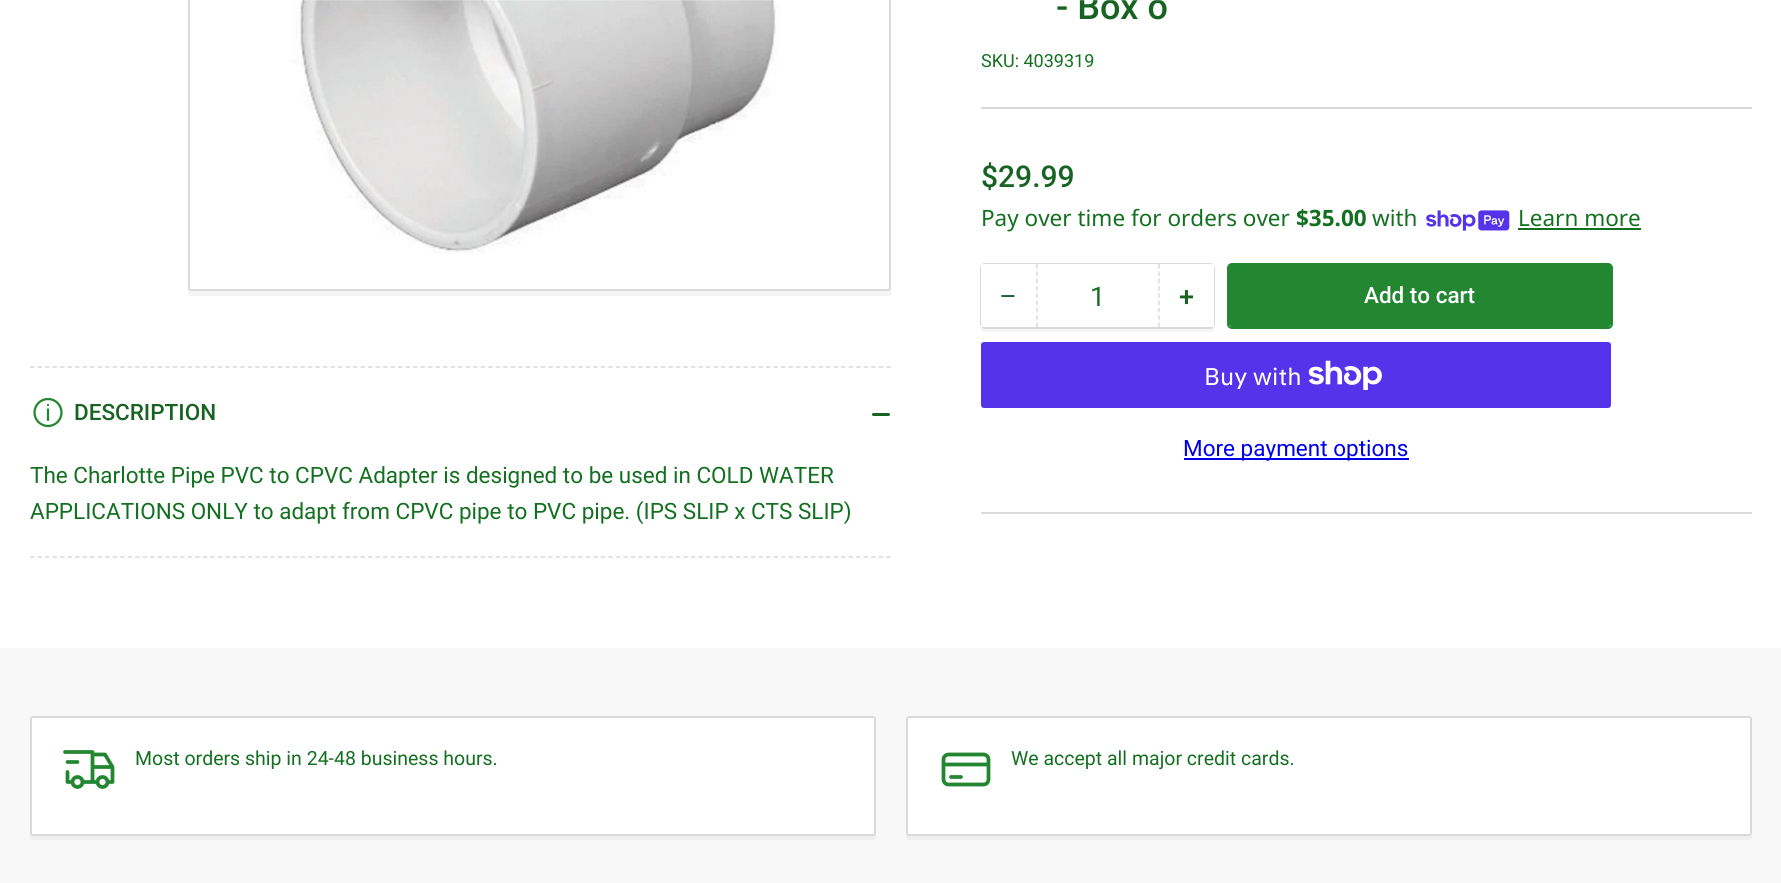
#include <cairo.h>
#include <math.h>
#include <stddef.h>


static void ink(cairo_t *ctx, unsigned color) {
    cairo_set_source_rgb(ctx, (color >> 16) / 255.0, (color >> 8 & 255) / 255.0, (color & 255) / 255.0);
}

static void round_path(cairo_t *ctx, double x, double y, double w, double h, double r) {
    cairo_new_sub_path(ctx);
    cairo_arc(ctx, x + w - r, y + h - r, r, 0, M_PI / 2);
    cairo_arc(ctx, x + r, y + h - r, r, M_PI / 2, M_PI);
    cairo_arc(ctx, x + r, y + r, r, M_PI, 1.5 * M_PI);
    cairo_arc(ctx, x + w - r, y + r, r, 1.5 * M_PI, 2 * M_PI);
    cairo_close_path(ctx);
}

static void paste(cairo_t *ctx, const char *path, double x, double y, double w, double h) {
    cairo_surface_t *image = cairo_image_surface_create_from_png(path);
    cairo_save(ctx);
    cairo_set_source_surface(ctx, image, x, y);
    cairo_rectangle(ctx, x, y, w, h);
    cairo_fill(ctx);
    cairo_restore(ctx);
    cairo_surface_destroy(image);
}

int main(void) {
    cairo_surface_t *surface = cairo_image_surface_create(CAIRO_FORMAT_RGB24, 1781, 883);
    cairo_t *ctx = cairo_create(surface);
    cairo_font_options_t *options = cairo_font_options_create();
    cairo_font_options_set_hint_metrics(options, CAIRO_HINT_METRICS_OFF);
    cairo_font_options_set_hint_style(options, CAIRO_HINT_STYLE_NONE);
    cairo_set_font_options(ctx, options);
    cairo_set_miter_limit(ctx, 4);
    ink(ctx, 0xFFFFFF);
    cairo_paint(ctx);
    ink(ctx, 0xF4F4F4);
    cairo_new_path(ctx);
    cairo_move_to(ctx, 188, 290);
    cairo_line_to(ctx, 188, 293);
    cairo_curve_to(ctx, 188, 295, 189, 296, 191, 296);
    cairo_line_to(ctx, 888, 296);
    cairo_curve_to(ctx, 890, 296, 891, 295, 891, 293);
    cairo_line_to(ctx, 891, 288);
    cairo_curve_to(ctx, 891, 290, 890, 291, 888, 291);
    cairo_line_to(ctx, 190, 291);
    cairo_curve_to(ctx, 189, 291, 189, 290, 188, 290);
    cairo_close_path(ctx);
    cairo_fill(ctx);
    round_path(ctx, 189, -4, 701, 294, 2);
    ink(ctx, 0xDADADA);
    cairo_stroke(ctx);
    paste(ctx, "media/1.png", 292, 0, 488, 254);
    cairo_rectangle(ctx, 981, 107, 771, 2);
    cairo_fill(ctx);
    cairo_select_font_face(ctx, "Roboto Medium", CAIRO_FONT_SLANT_NORMAL, CAIRO_FONT_WEIGHT_NORMAL);
    cairo_set_font_size(ctx, 36);
    ink(ctx, 0x186323);
    cairo_move_to(ctx, 1056, 19);
    cairo_show_text(ctx, "- Box o");
    cairo_select_font_face(ctx, "Roboto", CAIRO_FONT_SLANT_NORMAL, CAIRO_FONT_WEIGHT_NORMAL);
    cairo_set_font_size(ctx, 18);
    ink(ctx, 0x147021);
    cairo_move_to(ctx, 981, 67);
    cairo_show_text(ctx, "SKU: 4039319");
    cairo_select_font_face(ctx, "Roboto Medium", CAIRO_FONT_SLANT_NORMAL, CAIRO_FONT_WEIGHT_NORMAL);
    cairo_set_font_size(ctx, 30);
    ink(ctx, 0x186323);
    cairo_move_to(ctx, 981, 187);
    cairo_show_text(ctx, "$29.99");
    cairo_select_font_face(ctx, "Noto Sans", CAIRO_FONT_SLANT_NORMAL, CAIRO_FONT_WEIGHT_NORMAL);
    cairo_set_font_size(ctx, 22.5);
    ink(ctx, 0x147021);
    cairo_move_to(ctx, 981, 226);
    cairo_show_text(ctx, "Pay over time for orders over");
    cairo_select_font_face(ctx, "Noto Sans", CAIRO_FONT_SLANT_NORMAL, CAIRO_FONT_WEIGHT_BOLD);
    cairo_move_to(ctx, 1296, 226);
    cairo_show_text(ctx, "$35.00");
    cairo_select_font_face(ctx, "Noto Sans", CAIRO_FONT_SLANT_NORMAL, CAIRO_FONT_WEIGHT_NORMAL);
    cairo_move_to(ctx, 1372, 226);
    cairo_show_text(ctx, "with");
    paste(ctx, "media/2.png", 1426, 210, 84, 21);
    cairo_move_to(ctx, 1518, 226);
    cairo_show_text(ctx, "Learn more");
    cairo_rectangle(ctx, 1518, 228, 123, 2);
    cairo_fill(ctx);
    ink(ctx, 0xF4F4F4);
    cairo_new_path(ctx);
    cairo_move_to(ctx, 981, 324);
    cairo_line_to(ctx, 981, 329);
    cairo_curve_to(ctx, 981, 331, 982, 332, 984, 332);
    cairo_line_to(ctx, 1211, 332);
    cairo_curve_to(ctx, 1213, 332, 1214, 331, 1214, 329);
    cairo_line_to(ctx, 1214, 272);
    cairo_line_to(ctx, 1214, 270);
    cairo_line_to(ctx, 1214, 324);
    cairo_curve_to(ctx, 1214, 326, 1212, 327, 1210, 327);
    cairo_line_to(ctx, 984, 327);
    cairo_curve_to(ctx, 982, 327, 981, 326, 981, 324);
    cairo_close_path(ctx);
    cairo_fill(ctx);
    round_path(ctx, 981, 264, 233, 64, 4);
    ink(ctx, 0xDADADA);
    cairo_stroke(ctx);
    ink(ctx, 0xFFFFFF);
    cairo_rectangle(ctx, 1037, 264, 123, 1);
    cairo_fill(ctx);
    cairo_rectangle(ctx, 981, 264, 56, 63);
    cairo_fill(ctx);
    cairo_select_font_face(ctx, "Liberation Sans", CAIRO_FONT_SLANT_NORMAL, CAIRO_FONT_WEIGHT_NORMAL);
    cairo_set_font_size(ctx, 27);
    ink(ctx, 0x186323);
    cairo_move_to(ctx, 1000, 305);
    cairo_show_text(ctx, "−");
    cairo_new_path(ctx);
    cairo_move_to(ctx, 1159, 264);
    cairo_line_to(ctx, 1159, 327);
    ink(ctx, 0xDADADA);
    cairo_set_line_width(ctx, 1.5);
    cairo_set_dash(ctx, (double[]){4.5, 2.82}, 2, 0);
    cairo_stroke(ctx);
    cairo_new_path(ctx);
    cairo_move_to(ctx, 1037, 264);
    cairo_line_to(ctx, 1037, 327);
    cairo_stroke(ctx);
    cairo_select_font_face(ctx, "Roboto", CAIRO_FONT_SLANT_NORMAL, CAIRO_FONT_WEIGHT_NORMAL);
    ink(ctx, 0x147021);
    cairo_move_to(ctx, 1090, 306);
    cairo_show_text(ctx, "1");
    ink(ctx, 0xFFFFFF);
    cairo_rectangle(ctx, 1160, 264, 54, 63);
    cairo_fill(ctx);
    cairo_select_font_face(ctx, "Roboto Medium", CAIRO_FONT_SLANT_NORMAL, CAIRO_FONT_WEIGHT_NORMAL);
    ink(ctx, 0x186323);
    cairo_move_to(ctx, 1179, 306);
    cairo_show_text(ctx, "+");
    round_path(ctx, 1228, 264, 384, 64, 4);
    ink(ctx, 0x238732);
    cairo_set_line_width(ctx, 2);
    cairo_set_dash(ctx, NULL, 0, 0);
    cairo_stroke(ctx);
    round_path(ctx, 1229, 264, 382, 63, 3);
    cairo_fill(ctx);
    cairo_set_font_size(ctx, 22.5);
    ink(ctx, 0xFFFFFF);
    cairo_move_to(ctx, 1364, 303);
    cairo_show_text(ctx, "Add to cart");
    ink(ctx, 0x5433EB);
    round_path(ctx, 981, 342, 630, 66, 3);
    cairo_fill(ctx);
    cairo_select_font_face(ctx, "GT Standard", CAIRO_FONT_SLANT_NORMAL, CAIRO_FONT_WEIGHT_NORMAL);
    cairo_set_font_size(ctx, 24);
    ink(ctx, 0xFFFFFF);
    cairo_move_to(ctx, 1204, 385);
    cairo_show_text(ctx, "Buy with");
    paste(ctx, "media/3.png", 1308, 360, 74, 30);
    ink(ctx, 0x0000EE);
    cairo_rectangle(ctx, 1184, 458, 225, 2);
    cairo_fill(ctx);
    cairo_select_font_face(ctx, "Roboto", CAIRO_FONT_SLANT_NORMAL, CAIRO_FONT_WEIGHT_NORMAL);
    cairo_set_font_size(ctx, 22.5);
    cairo_move_to(ctx, 1183, 456);
    cairo_show_text(ctx, "More payment options");
    ink(ctx, 0xDADADA);
    cairo_rectangle(ctx, 981, 512, 771, 2);
    cairo_fill(ctx);
    cairo_new_path(ctx);
    cairo_move_to(ctx, 30, 367);
    cairo_line_to(ctx, 891, 367);
    cairo_set_line_width(ctx, 1.5);
    cairo_set_dash(ctx, (double[]){4.5, 3.01}, 2, 0);
    cairo_stroke(ctx);
    cairo_new_path(ctx);
    cairo_move_to(ctx, 30, 557);
    cairo_line_to(ctx, 891, 557);
    cairo_stroke(ctx);
    paste(ctx, "media/4.png", 33, 397, 30, 31);
    cairo_select_font_face(ctx, "Roboto Medium", CAIRO_FONT_SLANT_NORMAL, CAIRO_FONT_WEIGHT_NORMAL);
    ink(ctx, 0x186323);
    cairo_move_to(ctx, 74, 420);
    cairo_show_text(ctx, "DESCRIPTION");
    round_path(ctx, 872, 413, 10, 3, 1.5);
    cairo_fill(ctx);
    round_path(ctx, 878, 413, 12, 3, 1.5);
    cairo_fill(ctx);
    cairo_select_font_face(ctx, "Roboto", CAIRO_FONT_SLANT_NORMAL, CAIRO_FONT_WEIGHT_NORMAL);
    ink(ctx, 0x147021);
    cairo_move_to(ctx, 30, 483);
    cairo_show_text(ctx, "The Charlotte Pipe PVC to CPVC Adapter is designed to be used in COLD WATER");
    cairo_move_to(ctx, 30, 519);
    cairo_show_text(ctx, "APPLICATIONS ONLY to adapt from CPVC pipe to PVC pipe. (IPS SLIP x CTS SLIP)");
    cairo_set_source_rgba(ctx, 1, 1, 1, 0.2);
    cairo_rectangle(ctx, 188, 0, 975, 1);
    cairo_fill(ctx);
    ink(ctx, 0xF8F8F8);
    cairo_rectangle(ctx, 0, 648, 1781, 235);
    cairo_fill(ctx);
    ink(ctx, 0xEFEFEF);
    cairo_new_path(ctx);
    cairo_move_to(ctx, 30, 832);
    cairo_line_to(ctx, 30, 837);
    cairo_curve_to(ctx, 30, 839, 31, 840, 33, 840);
    cairo_line_to(ctx, 873, 840);
    cairo_curve_to(ctx, 875, 840, 876, 839, 876, 837);
    cairo_line_to(ctx, 876, 832);
    cairo_curve_to(ctx, 876, 834, 875, 836, 873, 836);
    cairo_line_to(ctx, 33, 836);
    cairo_curve_to(ctx, 31, 836, 30, 834, 30, 832);
    cairo_close_path(ctx);
    cairo_fill(ctx);
    ink(ctx, 0xFFFFFF);
    round_path(ctx, 31, 717, 844, 118, 2);
    cairo_fill_preserve(ctx);
    ink(ctx, 0xDADADA);
    cairo_set_line_width(ctx, 2);
    cairo_set_dash(ctx, NULL, 0, 0);
    cairo_stroke(ctx);
    paste(ctx, "media/5.png", 63, 750, 52, 39);
    cairo_set_font_size(ctx, 19.5);
    ink(ctx, 0x147021);
    cairo_move_to(ctx, 135, 765);
    cairo_show_text(ctx, "Most orders ship in 24-48 business hours.");
    ink(ctx, 0xEFEFEF);
    cairo_new_path(ctx);
    cairo_move_to(ctx, 906, 832);
    cairo_line_to(ctx, 906, 837);
    cairo_curve_to(ctx, 906, 839, 907, 840, 909, 840);
    cairo_line_to(ctx, 1749, 840);
    cairo_curve_to(ctx, 1751, 840, 1752, 839, 1752, 837);
    cairo_line_to(ctx, 1752, 832);
    cairo_curve_to(ctx, 1752, 834, 1751, 836, 1749, 836);
    cairo_line_to(ctx, 909, 836);
    cairo_curve_to(ctx, 907, 836, 906, 834, 906, 832);
    cairo_close_path(ctx);
    cairo_fill(ctx);
    ink(ctx, 0xFFFFFF);
    round_path(ctx, 907, 717, 844, 118, 2);
    cairo_fill_preserve(ctx);
    ink(ctx, 0xDADADA);
    cairo_stroke(ctx);
    paste(ctx, "media/6.png", 941, 752, 50, 35);
    ink(ctx, 0x147021);
    cairo_move_to(ctx, 1011, 765);
    cairo_show_text(ctx, "We accept all major credit cards.");
    cairo_surface_write_to_png(surface, "image.png");
    cairo_font_options_destroy(options);
    cairo_destroy(ctx);
    cairo_surface_destroy(surface);
    return 0;
}
